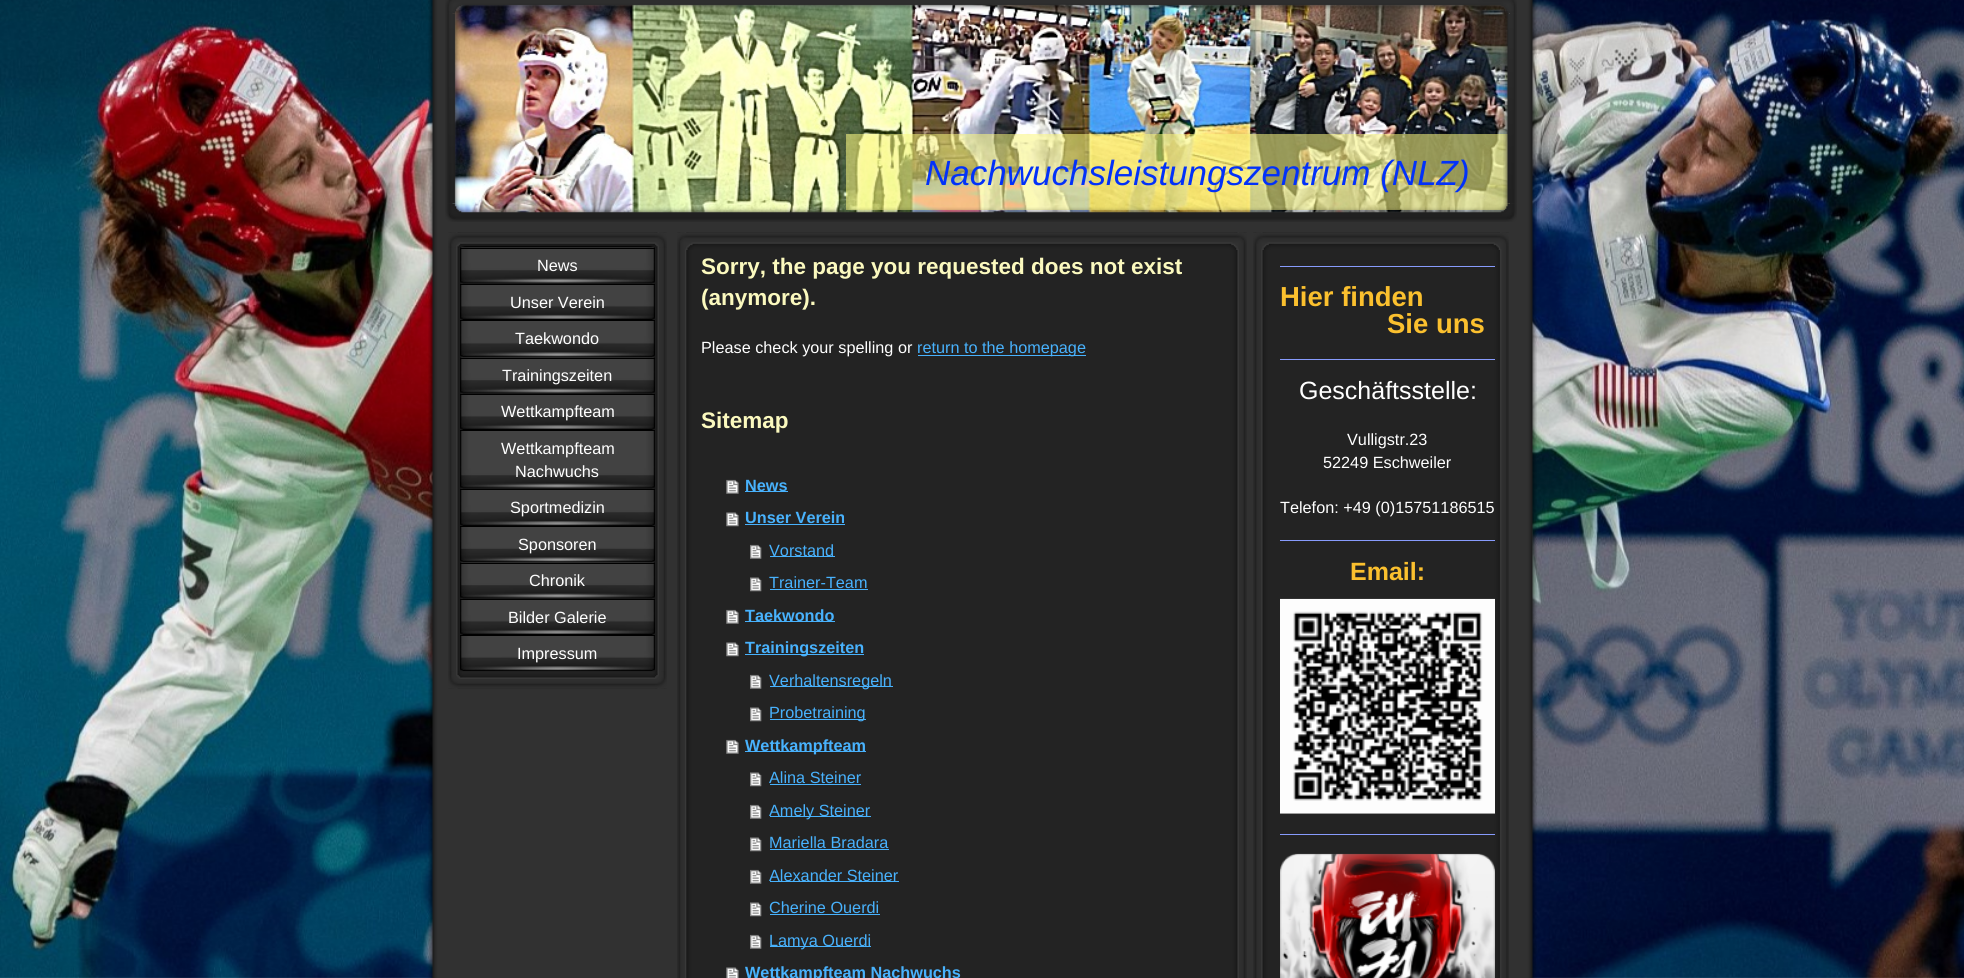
#include <cairo.h>
#include <math.h>
#include <stddef.h>

typedef struct { double x, y; const char *s; } line_t;

static void ink(cairo_t *ctx, unsigned color) {
    cairo_set_source_rgb(ctx, (color >> 16) / 255.0, (color >> 8 & 255) / 255.0, (color & 255) / 255.0);
}

static void paste(cairo_t *ctx, const char *path, double x, double y, double w, double h) {
    cairo_surface_t *image = cairo_image_surface_create_from_png(path);
    cairo_save(ctx);
    cairo_set_source_surface(ctx, image, x, y);
    cairo_rectangle(ctx, x, y, w, h);
    cairo_fill(ctx);
    cairo_restore(ctx);
    cairo_surface_destroy(image);
}

int main(void) {
    cairo_surface_t *surface = cairo_image_surface_create(CAIRO_FORMAT_RGB24, 1964, 978);
    cairo_t *ctx = cairo_create(surface);
    cairo_font_options_t *options = cairo_font_options_create();
    cairo_font_options_set_hint_metrics(options, CAIRO_HINT_METRICS_OFF);
    cairo_font_options_set_hint_style(options, CAIRO_HINT_STYLE_NONE);
    cairo_set_font_options(ctx, options);
    cairo_set_miter_limit(ctx, 4);
    ink(ctx, 0xFFFFFF);
    cairo_paint(ctx);
    paste(ctx, "media/1.png", 0, 0, 1964, 978);
    paste(ctx, "media/2.png", 428, 0, 1109, 978);
    paste(ctx, "media/6.png", 452, 13, 1050, 200);
    paste(ctx, "media/5.png", 452, 4, 1058, 209);
    paste(ctx, "media/4.png", 445, 13, 15, 191);
    cairo_set_source_rgba(ctx, 0.976, 0.965, 0.506, 0.57);
    cairo_rectangle(ctx, 846, 134, 664, 76);
    cairo_fill(ctx);
    paste(ctx, "media/8.png", 445, 203, 1072, 19);
    paste(ctx, "media/7.png", 1503, 13, 14, 191);
    paste(ctx, "media/3.png", 445, 0, 1072, 14);
    cairo_select_font_face(ctx, "Liberation Sans", CAIRO_FONT_SLANT_ITALIC, CAIRO_FONT_WEIGHT_NORMAL);
    cairo_set_font_size(ctx, 35);
    ink(ctx, 0x0231F9);
    cairo_move_to(ctx, 925, 185);
    cairo_show_text(ctx, "Nachwuchsleistungszentrum (NLZ)");
    paste(ctx, "media/9.png", 448, 232, 219, 457);
    paste(ctx, "media/10.png", 448, 232, 219, 16);
    paste(ctx, "media/11.png", 460, 247, 195, 37);
    ink(ctx, 0x000000);
    cairo_rectangle(ctx, 460, 248, 195, 1);
    cairo_fill(ctx);
    cairo_select_font_face(ctx, "Liberation Sans", CAIRO_FONT_SLANT_NORMAL, CAIRO_FONT_WEIGHT_NORMAL);
    cairo_set_font_size(ctx, 16.25);
    ink(ctx, 0xFFFFFF);
    cairo_move_to(ctx, 537, 271);
    cairo_show_text(ctx, "News");
    paste(ctx, "media/12.png", 460, 283, 195, 37);
    ink(ctx, 0x000000);
    cairo_rectangle(ctx, 460, 284, 195, 1);
    cairo_fill(ctx);
    ink(ctx, 0xFFFFFF);
    cairo_move_to(ctx, 510, 308);
    cairo_show_text(ctx, "Unser Verein");
    paste(ctx, "media/13.png", 460, 321, 195, 37);
    ink(ctx, 0x000000);
    cairo_rectangle(ctx, 460, 320, 195, 1);
    cairo_fill(ctx);
    ink(ctx, 0xFFFFFF);
    cairo_move_to(ctx, 515, 344);
    cairo_show_text(ctx, "Taekwondo");
    paste(ctx, "media/14.png", 460, 357, 195, 37);
    ink(ctx, 0x000000);
    cairo_rectangle(ctx, 460, 358, 195, 1);
    cairo_fill(ctx);
    ink(ctx, 0xFFFFFF);
    cairo_move_to(ctx, 502, 381);
    cairo_show_text(ctx, "Trainingszeiten");
    paste(ctx, "media/12.png", 460, 393, 195, 37);
    ink(ctx, 0x000000);
    cairo_rectangle(ctx, 460, 394, 195, 1);
    cairo_fill(ctx);
    ink(ctx, 0xFFFFFF);
    cairo_move_to(ctx, 501, 417);
    cairo_show_text(ctx, "Wettkampfteam");
    paste(ctx, "media/15.png", 460, 431, 195, 58);
    ink(ctx, 0x000000);
    cairo_rectangle(ctx, 460, 430, 195, 1);
    cairo_fill(ctx);
    ink(ctx, 0xFFFFFF);
    cairo_move_to(ctx, 501, 454);
    cairo_show_text(ctx, "Wettkampfteam");
    cairo_move_to(ctx, 515, 477);
    cairo_show_text(ctx, "Nachwuchs");
    paste(ctx, "media/16.png", 460, 488, 195, 38);
    ink(ctx, 0x000000);
    cairo_rectangle(ctx, 460, 489, 195, 1);
    cairo_fill(ctx);
    ink(ctx, 0xFFFFFF);
    cairo_move_to(ctx, 510, 513);
    cairo_show_text(ctx, "Sportmedizin");
    paste(ctx, "media/17.png", 460, 527, 195, 36);
    ink(ctx, 0x000000);
    cairo_rectangle(ctx, 460, 526, 195, 1);
    cairo_fill(ctx);
    ink(ctx, 0xFFFFFF);
    cairo_move_to(ctx, 518, 550);
    cairo_show_text(ctx, "Sponsoren");
    paste(ctx, "media/14.png", 460, 562, 195, 37);
    ink(ctx, 0x000000);
    cairo_rectangle(ctx, 460, 563, 195, 1);
    cairo_fill(ctx);
    ink(ctx, 0xFFFFFF);
    cairo_move_to(ctx, 529, 586);
    cairo_show_text(ctx, "Chronik");
    paste(ctx, "media/12.png", 460, 598, 195, 37);
    ink(ctx, 0x000000);
    cairo_rectangle(ctx, 460, 599, 195, 1);
    cairo_fill(ctx);
    ink(ctx, 0xFFFFFF);
    cairo_move_to(ctx, 508, 623);
    cairo_show_text(ctx, "Bilder Galerie");
    paste(ctx, "media/18.png", 460, 636, 195, 36);
    ink(ctx, 0x000000);
    cairo_rectangle(ctx, 460, 635, 195, 1);
    cairo_fill(ctx);
    ink(ctx, 0xFFFFFF);
    cairo_move_to(ctx, 517, 659);
    cairo_show_text(ctx, "Impressum");
    paste(ctx, "media/19.png", 448, 671, 219, 18);
    paste(ctx, "media/20.png", 677, 232, 570, 746);
    paste(ctx, "media/21.png", 677, 232, 570, 18);
    cairo_select_font_face(ctx, "Liberation Sans", CAIRO_FONT_SLANT_NORMAL, CAIRO_FONT_WEIGHT_BOLD);
    cairo_set_font_size(ctx, 22.5);
    ink(ctx, 0xFBF9BE);
    cairo_move_to(ctx, 701, 274);
    cairo_show_text(ctx, "Sorry, the page you requested does not exist");
    cairo_move_to(ctx, 701, 305);
    cairo_show_text(ctx, "(anymore).");
    cairo_select_font_face(ctx, "Liberation Sans", CAIRO_FONT_SLANT_NORMAL, CAIRO_FONT_WEIGHT_NORMAL);
    cairo_set_font_size(ctx, 16.25);
    ink(ctx, 0xFFFFFF);
    cairo_move_to(ctx, 701, 353);
    cairo_show_text(ctx, "Please check your spelling or");
    ink(ctx, 0x48B2FD);
    cairo_rectangle(ctx, 918, 355, 168, 1);
    cairo_fill(ctx);
    cairo_move_to(ctx, 917, 353);
    cairo_show_text(ctx, "return to the homepage");
    cairo_select_font_face(ctx, "Liberation Sans", CAIRO_FONT_SLANT_NORMAL, CAIRO_FONT_WEIGHT_BOLD);
    cairo_set_font_size(ctx, 22.5);
    ink(ctx, 0xFBF9BE);
    cairo_move_to(ctx, 701, 428);
    cairo_show_text(ctx, "Sitemap");
    paste(ctx, "media/22.png", 726, 479, 13, 15);
    ink(ctx, 0x48B2FD);
    cairo_rectangle(ctx, 745, 491, 43, 1);
    cairo_fill(ctx);
    cairo_set_font_size(ctx, 16.25);
    cairo_move_to(ctx, 745, 491);
    cairo_show_text(ctx, "News");
    paste(ctx, "media/23.png", 726, 512, 13, 15);
    cairo_move_to(ctx, 745, 523);
    cairo_show_text(ctx, "Unser Verein");
    cairo_rectangle(ctx, 745, 524, 100, 1);
    cairo_fill(ctx);
    paste(ctx, "media/24.png", 750, 544, 12, 15);
    cairo_rectangle(ctx, 770, 556, 65, 1);
    cairo_fill(ctx);
    cairo_select_font_face(ctx, "Liberation Sans", CAIRO_FONT_SLANT_NORMAL, CAIRO_FONT_WEIGHT_NORMAL);
    cairo_move_to(ctx, 769, 556);
    cairo_show_text(ctx, "Vorstand");
    paste(ctx, "media/25.png", 750, 577, 12, 15);
    cairo_move_to(ctx, 769, 588);
    cairo_show_text(ctx, "Trainer-Team");
    cairo_rectangle(ctx, 770, 589, 98, 1);
    cairo_fill(ctx);
    paste(ctx, "media/22.png", 726, 609, 13, 15);
    cairo_rectangle(ctx, 745, 621, 90, 1);
    cairo_fill(ctx);
    cairo_select_font_face(ctx, "Liberation Sans", CAIRO_FONT_SLANT_NORMAL, CAIRO_FONT_WEIGHT_BOLD);
    cairo_move_to(ctx, 745, 621);
    cairo_show_text(ctx, "Taekwondo");
    paste(ctx, "media/23.png", 726, 642, 13, 15);
    cairo_rectangle(ctx, 745, 654, 119, 1);
    cairo_fill(ctx);
    cairo_move_to(ctx, 745, 653);
    cairo_show_text(ctx, "Trainingszeiten");
    paste(ctx, "media/24.png", 750, 674, 12, 15);
    cairo_rectangle(ctx, 770, 686, 123, 1);
    cairo_fill(ctx);
    cairo_select_font_face(ctx, "Liberation Sans", CAIRO_FONT_SLANT_NORMAL, CAIRO_FONT_WEIGHT_NORMAL);
    cairo_move_to(ctx, 769, 686);
    cairo_show_text(ctx, "Verhaltensregeln");
    paste(ctx, "media/25.png", 750, 707, 12, 15);
    cairo_rectangle(ctx, 770, 719, 96, 1);
    cairo_fill(ctx);
    cairo_move_to(ctx, 769, 718);
    cairo_show_text(ctx, "Probetraining");
    paste(ctx, "media/22.png", 726, 739, 13, 15);
    cairo_rectangle(ctx, 745, 751, 121, 1);
    cairo_fill(ctx);
    cairo_select_font_face(ctx, "Liberation Sans", CAIRO_FONT_SLANT_NORMAL, CAIRO_FONT_WEIGHT_BOLD);
    cairo_move_to(ctx, 745, 751);
    cairo_show_text(ctx, "Wettkampfteam");
    paste(ctx, "media/25.png", 750, 772, 12, 15);
    cairo_select_font_face(ctx, "Liberation Sans", CAIRO_FONT_SLANT_NORMAL, CAIRO_FONT_WEIGHT_NORMAL);
    cairo_move_to(ctx, 769, 783);
    cairo_show_text(ctx, "Alina Steiner");
    cairo_rectangle(ctx, 770, 784, 91, 1);
    cairo_fill(ctx);
    paste(ctx, "media/24.png", 750, 804, 12, 15);
    cairo_rectangle(ctx, 770, 816, 101, 1);
    cairo_fill(ctx);
    cairo_move_to(ctx, 769, 816);
    cairo_show_text(ctx, "Amely Steiner");
    paste(ctx, "media/25.png", 750, 837, 12, 15);
    cairo_move_to(ctx, 769, 848);
    cairo_show_text(ctx, "Mariella Bradara");
    cairo_rectangle(ctx, 770, 849, 119, 1);
    cairo_fill(ctx);
    paste(ctx, "media/24.png", 750, 869, 12, 15);
    cairo_rectangle(ctx, 770, 881, 129, 1);
    cairo_fill(ctx);
    cairo_move_to(ctx, 769, 881);
    cairo_show_text(ctx, "Alexander Steiner");
    paste(ctx, "media/25.png", 750, 902, 12, 15);
    cairo_move_to(ctx, 769, 913);
    cairo_show_text(ctx, "Cherine Ouerdi");
    cairo_rectangle(ctx, 770, 914, 110, 1);
    cairo_fill(ctx);
    paste(ctx, "media/24.png", 750, 934, 12, 15);
    cairo_rectangle(ctx, 770, 946, 101, 1);
    cairo_fill(ctx);
    cairo_move_to(ctx, 769, 946);
    cairo_show_text(ctx, "Lamya Ouerdi");
    paste(ctx, "media/26.png", 726, 967, 13, 11);
    cairo_select_font_face(ctx, "Liberation Sans", CAIRO_FONT_SLANT_NORMAL, CAIRO_FONT_WEIGHT_BOLD);
    cairo_move_to(ctx, 745, 978);
    cairo_show_text(ctx, "Wettkampfteam Nachwuchs");
    paste(ctx, "media/27.png", 1253, 232, 256, 746);
    paste(ctx, "media/28.png", 1253, 232, 256, 18);
    ink(ctx, 0x879BFC);
    cairo_rectangle(ctx, 1280, 266, 215, 1);
    cairo_fill(ctx);
    cairo_set_font_size(ctx, 27.5);
    ink(ctx, 0xFBC02E);
    cairo_move_to(ctx, 1280, 306);
    cairo_show_text(ctx, "Hier finden");
    cairo_move_to(ctx, 1387, 333);
    cairo_show_text(ctx, "Sie uns");
    ink(ctx, 0x879BFC);
    cairo_rectangle(ctx, 1280, 359, 215, 1);
    cairo_fill(ctx);
    cairo_select_font_face(ctx, "Liberation Sans", CAIRO_FONT_SLANT_NORMAL, CAIRO_FONT_WEIGHT_NORMAL);
    cairo_set_font_size(ctx, 25);
    ink(ctx, 0xFFFFFF);
    cairo_move_to(ctx, 1299, 399);
    cairo_show_text(ctx, "Geschäftsstelle:");
    cairo_set_font_size(ctx, 16.25);
    {
        static const line_t items[] = {
            {1347, 445, "Vulligstr.23"},
            {1323, 468, "52249 Eschweiler"},
            {1280, 513, "Telefon: +49 (0)15751186515"},
        };
        for (size_t i = 0; i < sizeof items / sizeof *items; i++) {
            cairo_move_to(ctx, items[i].x, items[i].y);
            cairo_show_text(ctx, items[i].s);
        }
    }
    ink(ctx, 0x879BFC);
    cairo_rectangle(ctx, 1280, 540, 215, 1);
    cairo_fill(ctx);
    cairo_select_font_face(ctx, "Liberation Sans", CAIRO_FONT_SLANT_NORMAL, CAIRO_FONT_WEIGHT_BOLD);
    cairo_set_font_size(ctx, 25);
    ink(ctx, 0xFBC02E);
    cairo_move_to(ctx, 1350, 580);
    cairo_show_text(ctx, "Email:");
    paste(ctx, "media/29.png", 1280, 598, 215, 216);
    ink(ctx, 0x879BFC);
    cairo_rectangle(ctx, 1280, 834, 215, 1);
    cairo_fill(ctx);
    paste(ctx, "media/30.png", 1280, 853, 215, 125);
    cairo_surface_write_to_png(surface, "image.png");
    cairo_font_options_destroy(options);
    cairo_destroy(ctx);
    cairo_surface_destroy(surface);
    return 0;
}
